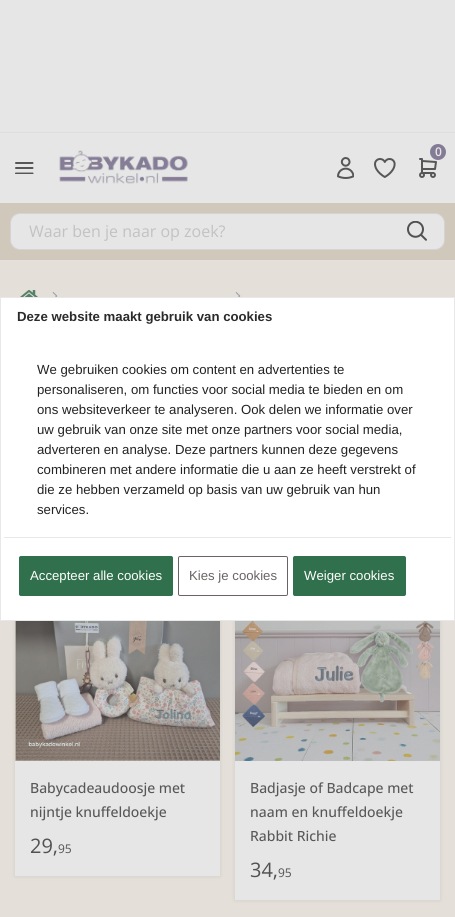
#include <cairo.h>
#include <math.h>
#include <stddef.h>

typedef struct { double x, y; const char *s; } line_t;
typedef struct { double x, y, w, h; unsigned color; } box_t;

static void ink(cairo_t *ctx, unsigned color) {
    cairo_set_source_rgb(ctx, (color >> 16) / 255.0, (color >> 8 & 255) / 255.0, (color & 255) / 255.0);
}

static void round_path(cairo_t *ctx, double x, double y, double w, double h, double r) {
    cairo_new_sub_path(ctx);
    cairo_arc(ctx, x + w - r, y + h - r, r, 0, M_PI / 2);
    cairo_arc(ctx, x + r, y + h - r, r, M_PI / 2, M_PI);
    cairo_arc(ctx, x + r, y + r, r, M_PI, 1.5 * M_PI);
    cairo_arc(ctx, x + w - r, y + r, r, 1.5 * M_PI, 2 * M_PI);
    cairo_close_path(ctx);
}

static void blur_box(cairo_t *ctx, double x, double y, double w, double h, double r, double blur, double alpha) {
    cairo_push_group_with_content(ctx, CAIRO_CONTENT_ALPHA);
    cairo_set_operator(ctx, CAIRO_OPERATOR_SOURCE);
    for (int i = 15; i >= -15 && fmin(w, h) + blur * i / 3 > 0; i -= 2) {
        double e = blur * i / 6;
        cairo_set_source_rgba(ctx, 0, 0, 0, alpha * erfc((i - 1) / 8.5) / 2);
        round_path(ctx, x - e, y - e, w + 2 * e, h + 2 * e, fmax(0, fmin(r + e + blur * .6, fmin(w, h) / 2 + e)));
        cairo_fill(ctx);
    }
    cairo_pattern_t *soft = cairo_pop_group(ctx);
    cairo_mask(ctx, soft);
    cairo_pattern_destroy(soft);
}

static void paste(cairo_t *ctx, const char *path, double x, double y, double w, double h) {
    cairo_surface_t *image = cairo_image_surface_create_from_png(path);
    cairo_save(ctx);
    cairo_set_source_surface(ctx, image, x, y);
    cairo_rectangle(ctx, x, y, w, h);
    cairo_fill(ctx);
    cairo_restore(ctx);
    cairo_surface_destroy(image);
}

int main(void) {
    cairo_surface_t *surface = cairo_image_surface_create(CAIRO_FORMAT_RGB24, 455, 917);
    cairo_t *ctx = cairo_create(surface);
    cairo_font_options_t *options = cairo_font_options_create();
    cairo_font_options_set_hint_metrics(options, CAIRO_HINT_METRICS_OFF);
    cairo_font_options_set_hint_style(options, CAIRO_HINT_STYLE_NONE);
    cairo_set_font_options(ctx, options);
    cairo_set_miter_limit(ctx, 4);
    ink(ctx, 0xE4DFD8);
    cairo_paint(ctx);
    {
        static const box_t items[] = {
            {0, 0, 455, 132, 0xE6E6E6},
            {0, 132, 455, 1, 0xE0DEDB},
            {0, 133, 455, 70, 0xE6E6E6},
        };
        for (size_t i = 0; i < sizeof items / sizeof *items; i++) {
            ink(ctx, items[i].color);
            cairo_rectangle(ctx, items[i].x, items[i].y, items[i].w, items[i].h);
            cairo_fill(ctx);
        }
    }
    cairo_save(ctx);
    cairo_rectangle(ctx, 15, 162, 19, 12);
    cairo_clip(ctx);
    cairo_new_path(ctx);
    cairo_move_to(ctx, 16, 163);
    cairo_line_to(ctx, 32.5, 163);
    cairo_move_to(ctx, 16, 168);
    cairo_line_to(ctx, 32.5, 168);
    cairo_move_to(ctx, 16, 173.5);
    cairo_line_to(ctx, 32.5, 173.5);
    ink(ctx, 0x575757);
    cairo_set_line_cap(ctx, CAIRO_LINE_CAP_ROUND);
    cairo_set_line_join(ctx, CAIRO_LINE_JOIN_ROUND);
    cairo_stroke(ctx);
    cairo_restore(ctx);
    paste(ctx, "media/1.png", 59, 150, 129, 34);
    paste(ctx, "media/2.png", 419, 158, 18, 20);
    ink(ctx, 0x847C96);
    cairo_arc(ctx, 438, 152, 8, 0, 2 * M_PI);
    cairo_fill(ctx);
    cairo_select_font_face(ctx, "Open Sans SemiBold", CAIRO_FONT_SLANT_NORMAL, CAIRO_FONT_WEIGHT_NORMAL);
    cairo_set_font_size(ctx, 12);
    ink(ctx, 0xE6E6E6);
    cairo_move_to(ctx, 435, 156);
    cairo_show_text(ctx, "0");
    paste(ctx, "media/3.png", 337, 157, 17, 22);
    paste(ctx, "media/4.png", 374, 158, 22, 20);
    ink(ctx, 0xD1C8BC);
    cairo_rectangle(ctx, 0, 203, 455, 57);
    cairo_fill(ctx);
    ink(ctx, 0xE6E6E6);
    round_path(ctx, 10.5, 213.5, 434, 36, 9.5);
    cairo_fill_preserve(ctx);
    ink(ctx, 0xD3D3D3);
    cairo_set_line_width(ctx, 1);
    cairo_stroke(ctx);
    cairo_select_font_face(ctx, "Open Sans", CAIRO_FONT_SLANT_NORMAL, CAIRO_FONT_WEIGHT_NORMAL);
    cairo_set_font_size(ctx, 16);
    ink(ctx, 0xC2C2C2);
    cairo_move_to(ctx, 29, 237);
    cairo_show_text(ctx, "Waar ben je naar op zoek?");
    paste(ctx, "media/5.png", 407, 221, 20, 20);
    paste(ctx, "media/6.png", 20, 290, 18, 7);
    paste(ctx, "media/7.png", 52, 292, 6, 5);
    paste(ctx, "media/7.png", 235, 292, 6, 5);
    ink(ctx, 0xB7B7B7);
    blur_box(ctx, 15, 556, 205, 320, 0, 2, 0.5);
    blur_box(ctx, 235, 556, 205, 344, 0, 2, 0.5);
    ink(ctx, 0xFFFFFF);
    cairo_rectangle(ctx, 0.5, 297.5, 454, 323);
    cairo_fill_preserve(ctx);
    ink(ctx, 0xE8E8E8);
    cairo_stroke(ctx);
    cairo_select_font_face(ctx, "Liberation Sans", CAIRO_FONT_SLANT_NORMAL, CAIRO_FONT_WEIGHT_BOLD);
    cairo_set_font_size(ctx, 13.2);
    ink(ctx, 0x2B2B2B);
    cairo_move_to(ctx, 17, 321);
    cairo_show_text(ctx, "Deze website maakt gebruik van cookies");
    cairo_select_font_face(ctx, "Liberation Sans", CAIRO_FONT_SLANT_NORMAL, CAIRO_FONT_WEIGHT_NORMAL);
    ink(ctx, 0x222222);
    {
        static const line_t items[] = {
            {37, 374, "We gebruiken cookies om content en advertenties te"},
            {37, 394, "personaliseren, om functies voor social media te bieden en om"},
            {37, 414, "ons websiteverkeer te analyseren. Ook delen we informatie over"},
            {37, 434, "uw gebruik van onze site met onze partners voor social media,"},
            {37, 454, "adverteren en analyse. Deze partners kunnen deze gegevens"},
            {37, 474, "combineren met andere informatie die u aan ze heeft verstrekt of"},
            {37, 494, "die ze hebben verzameld op basis van uw gebruik van hun"},
            {37, 514, "services."},
        };
        for (size_t i = 0; i < sizeof items / sizeof *items; i++) {
            cairo_move_to(ctx, items[i].x, items[i].y);
            cairo_show_text(ctx, items[i].s);
        }
    }
    ink(ctx, 0xE8E8E8);
    cairo_rectangle(ctx, 4, 537, 447, 1);
    cairo_fill(ctx);
    ink(ctx, 0x31704C);
    round_path(ctx, 19.5, 556.5, 153, 39, 1.5);
    cairo_fill_preserve(ctx);
    cairo_stroke(ctx);
    ink(ctx, 0xFFFFFF);
    cairo_move_to(ctx, 30, 580);
    cairo_show_text(ctx, "Accepteer alle cookies");
    round_path(ctx, 178.5, 556.5, 109, 39, 1.5);
    ink(ctx, 0x6B6363);
    cairo_stroke(ctx);
    cairo_move_to(ctx, 189, 580);
    cairo_show_text(ctx, "Kies je cookies");
    ink(ctx, 0x31704C);
    round_path(ctx, 293.5, 556.5, 112, 39, 1.5);
    cairo_fill_preserve(ctx);
    cairo_stroke(ctx);
    ink(ctx, 0xFFFFFF);
    cairo_move_to(ctx, 304, 580);
    cairo_show_text(ctx, "Weiger cookies");
    ink(ctx, 0xE6E6E6);
    cairo_rectangle(ctx, 15, 761, 205, 115);
    cairo_fill(ctx);
    paste(ctx, "media/8.png", 15, 621, 205, 140);
    cairo_select_font_face(ctx, "Open Sans Medium", CAIRO_FONT_SLANT_NORMAL, CAIRO_FONT_WEIGHT_NORMAL);
    cairo_set_font_size(ctx, 14);
    ink(ctx, 0x575757);
    cairo_move_to(ctx, 30, 793);
    cairo_show_text(ctx, "Babycadeaudoosje met");
    cairo_move_to(ctx, 30, 817);
    cairo_show_text(ctx, "nijntje knuffeldoekje");
    cairo_select_font_face(ctx, "Open Sans", CAIRO_FONT_SLANT_NORMAL, CAIRO_FONT_WEIGHT_NORMAL);
    cairo_set_font_size(ctx, 20);
    ink(ctx, 0x515151);
    cairo_move_to(ctx, 30, 853);
    cairo_show_text(ctx, "29,");
    cairo_set_font_size(ctx, 12);
    cairo_move_to(ctx, 58, 853);
    cairo_show_text(ctx, "95");
    ink(ctx, 0xE6E6E6);
    cairo_rectangle(ctx, 235, 761, 205, 139);
    cairo_fill(ctx);
    paste(ctx, "media/9.png", 235, 621, 205, 140);
    cairo_select_font_face(ctx, "Open Sans Medium", CAIRO_FONT_SLANT_NORMAL, CAIRO_FONT_WEIGHT_NORMAL);
    cairo_set_font_size(ctx, 14);
    ink(ctx, 0x575757);
    {
        static const line_t items[] = {
            {250, 793, "Badjasje of Badcape met"},
            {250, 817, "naam en knuffeldoekje"},
            {250, 841, "Rabbit Richie"},
        };
        for (size_t i = 0; i < sizeof items / sizeof *items; i++) {
            cairo_move_to(ctx, items[i].x, items[i].y);
            cairo_show_text(ctx, items[i].s);
        }
    }
    cairo_select_font_face(ctx, "Open Sans", CAIRO_FONT_SLANT_NORMAL, CAIRO_FONT_WEIGHT_NORMAL);
    cairo_set_font_size(ctx, 20);
    ink(ctx, 0x515151);
    cairo_move_to(ctx, 250, 877);
    cairo_show_text(ctx, "34,");
    cairo_set_font_size(ctx, 12);
    cairo_move_to(ctx, 278, 877);
    cairo_show_text(ctx, "95");
    cairo_surface_write_to_png(surface, "image.png");
    cairo_font_options_destroy(options);
    cairo_destroy(ctx);
    cairo_surface_destroy(surface);
    return 0;
}
